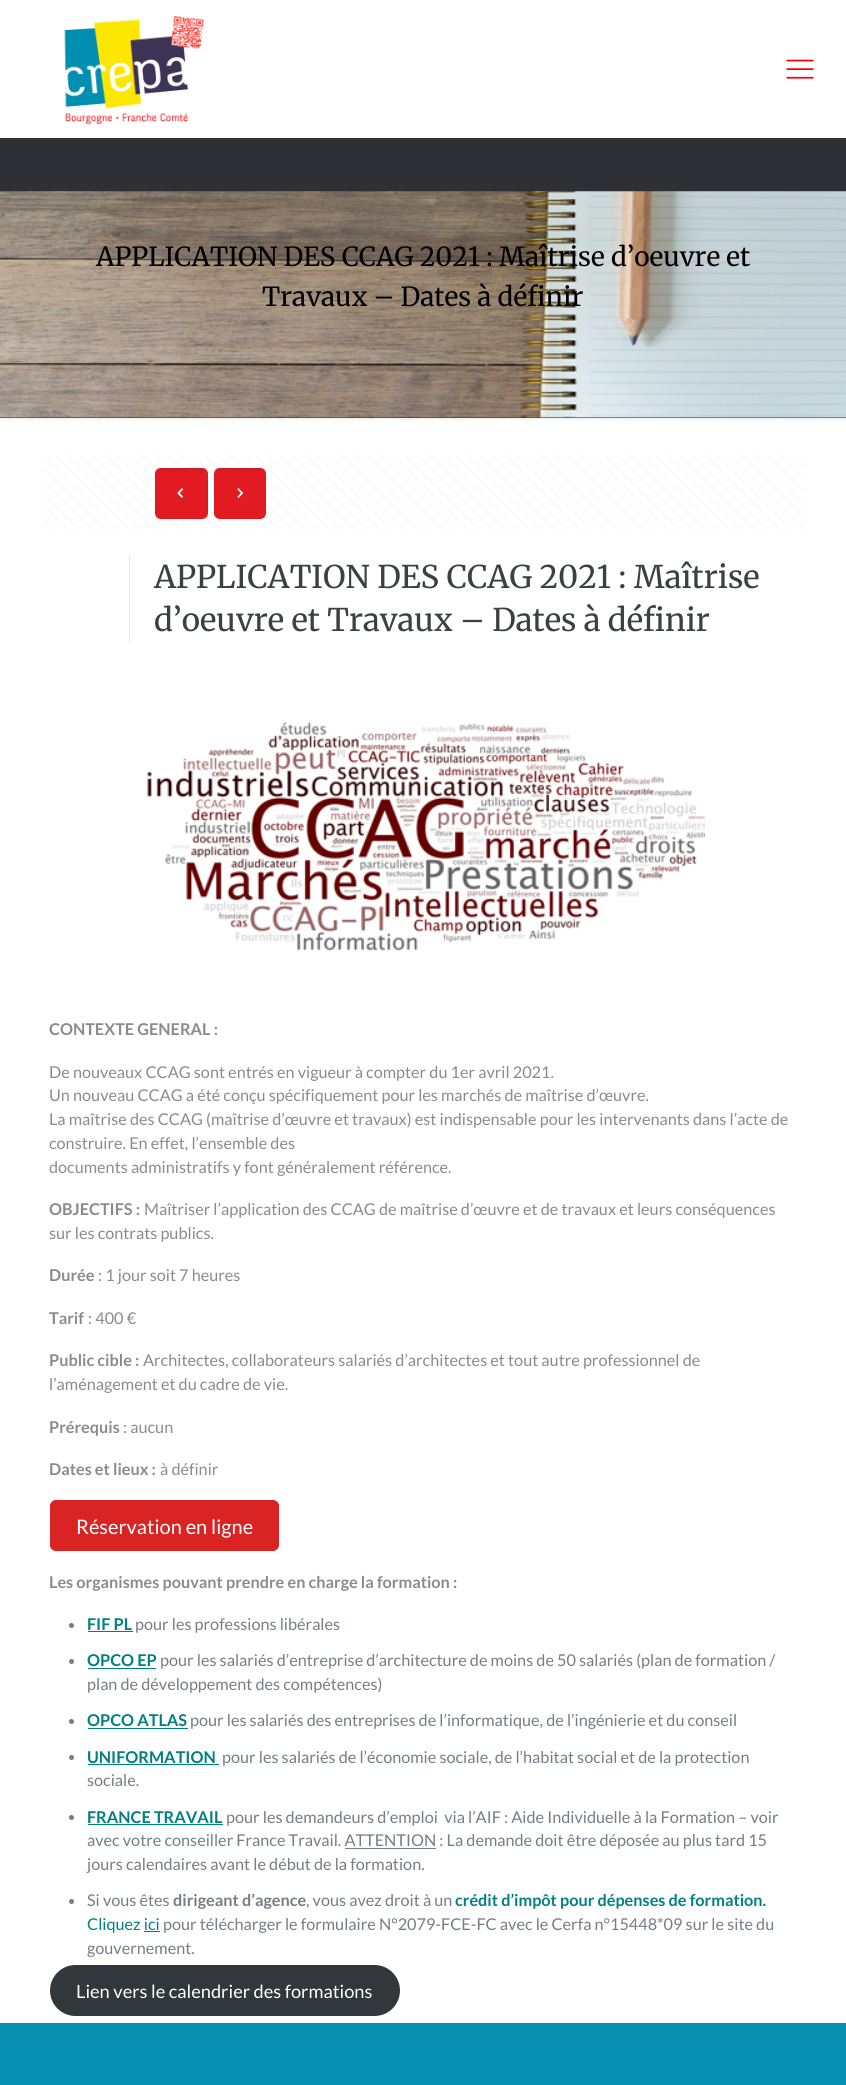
#include <cairo.h>
#include <math.h>
#include <stddef.h>

typedef struct { double x, y; const char *s; } line_t;

static void ink(cairo_t *ctx, unsigned color) {
    cairo_set_source_rgb(ctx, (color >> 16) / 255.0, (color >> 8 & 255) / 255.0, (color & 255) / 255.0);
}

static void round_path(cairo_t *ctx, double x, double y, double w, double h, double r) {
    cairo_new_sub_path(ctx);
    cairo_arc(ctx, x + w - r, y + h - r, r, 0, M_PI / 2);
    cairo_arc(ctx, x + r, y + h - r, r, M_PI / 2, M_PI);
    cairo_arc(ctx, x + r, y + r, r, M_PI, 1.5 * M_PI);
    cairo_arc(ctx, x + w - r, y + r, r, 1.5 * M_PI, 2 * M_PI);
    cairo_close_path(ctx);
}

static void paste(cairo_t *ctx, const char *path, double x, double y, double w, double h) {
    cairo_surface_t *image = cairo_image_surface_create_from_png(path);
    cairo_save(ctx);
    cairo_set_source_surface(ctx, image, x, y);
    cairo_rectangle(ctx, x, y, w, h);
    cairo_fill(ctx);
    cairo_restore(ctx);
    cairo_surface_destroy(image);
}

int main(void) {
    cairo_surface_t *surface = cairo_image_surface_create(CAIRO_FORMAT_RGB24, 846, 2085);
    cairo_t *ctx = cairo_create(surface);
    cairo_font_options_t *options = cairo_font_options_create();
    cairo_font_options_set_hint_metrics(options, CAIRO_HINT_METRICS_OFF);
    cairo_font_options_set_hint_style(options, CAIRO_HINT_STYLE_NONE);
    cairo_set_font_options(ctx, options);
    cairo_set_miter_limit(ctx, 4);
    ink(ctx, 0xFFFFFF);
    cairo_paint(ctx);
    ink(ctx, 0x2E3035);
    cairo_rectangle(ctx, 0, 138, 846, 280);
    cairo_fill(ctx);
    paste(ctx, "media/1.png", 0, 191, 846, 227);
    paste(ctx, "media/2.png", 64, 16, 140, 109);
    paste(ctx, "media/3.png", 786, 59, 28, 20);
    cairo_select_font_face(ctx, "Merriweather", CAIRO_FONT_SLANT_NORMAL, CAIRO_FONT_WEIGHT_NORMAL);
    cairo_set_font_size(ctx, 26.25);
    ink(ctx, 0x000000);
    cairo_move_to(ctx, 96, 266);
    cairo_show_text(ctx, "APPLICATION DES CCAG 2021 : Maîtrise d’oeuvre et");
    cairo_move_to(ctx, 262, 306);
    cairo_show_text(ctx, "Travaux – Dates à définir");
    cairo_set_source_rgba(ctx, 0, 0, 0, 0.05);
    cairo_rectangle(ctx, 0, 417, 846, 3);
    cairo_fill(ctx);
    paste(ctx, "media/4.png", 43, 455, 762, 75);
    ink(ctx, 0xED1C24);
    round_path(ctx, 155, 468, 53, 51, 6);
    cairo_fill(ctx);
    cairo_set_source_rgba(ctx, 0, 0, 0, 0.05);
    cairo_rectangle(ctx, 156, 468, 50, 3);
    cairo_fill(ctx);
    cairo_rectangle(ctx, 155.5, 468.5, 52, 50);
    cairo_set_source_rgba(ctx, 0, 0, 0, 0.03);
    cairo_set_line_width(ctx, 1);
    cairo_stroke(ctx);
    cairo_set_source_rgba(ctx, 0, 0, 0, 0.05);
    cairo_rectangle(ctx, 155, 468, 53, 51);
    cairo_fill(ctx);
    paste(ctx, "media/5.png", 177, 488, 6, 10);
    ink(ctx, 0xED1C24);
    round_path(ctx, 214, 468, 52, 51, 6);
    cairo_fill(ctx);
    cairo_set_source_rgba(ctx, 0, 0, 0, 0.05);
    cairo_rectangle(ctx, 215, 468, 50, 3);
    cairo_fill(ctx);
    cairo_rectangle(ctx, 214.5, 468.5, 51, 50);
    cairo_set_source_rgba(ctx, 0, 0, 0, 0.03);
    cairo_stroke(ctx);
    cairo_set_source_rgba(ctx, 0, 0, 0, 0.05);
    cairo_rectangle(ctx, 214, 468, 52, 51);
    cairo_fill(ctx);
    paste(ctx, "media/6.png", 237, 488, 6, 10);
    ink(ctx, 0xEBEBEB);
    cairo_rectangle(ctx, 129, 555, 1, 88);
    cairo_fill(ctx);
    cairo_set_font_size(ctx, 31.25);
    ink(ctx, 0x3C3F44);
    cairo_move_to(ctx, 154, 588);
    cairo_show_text(ctx, "APPLICATION DES CCAG 2021 : Maîtrise");
    cairo_move_to(ctx, 154, 631);
    cairo_show_text(ctx, "d’oeuvre et Travaux – Dates à définir");
    paste(ctx, "media/7.png", 147, 722, 558, 229);
    cairo_select_font_face(ctx, "Lato", CAIRO_FONT_SLANT_NORMAL, CAIRO_FONT_WEIGHT_BOLD);
    cairo_set_font_size(ctx, 16.25);
    ink(ctx, 0x8C8B8B);
    cairo_move_to(ctx, 49, 1035);
    cairo_show_text(ctx, "CONTEXTE GENERAL :");
    cairo_select_font_face(ctx, "Lato", CAIRO_FONT_SLANT_NORMAL, CAIRO_FONT_WEIGHT_NORMAL);
    {
        static const line_t items[] = {
            {49, 1078, "De nouveaux CCAG sont entrés en vigueur à compter du 1er avril 2021."},
            {49, 1101, "Un nouveau CCAG a été conçu spécifiquement pour les marchés de maîtrise d’œuvre."},
            {49, 1125, "La maîtrise des CCAG (maîtrise d’œuvre et travaux) est indispensable pour les intervenants dans l’acte de"},
            {49, 1149, "construire. En effet, l’ensemble des"},
            {49, 1173, "documents administratifs y font généralement référence."},
        };
        for (size_t i = 0; i < sizeof items / sizeof *items; i++) {
            cairo_move_to(ctx, items[i].x, items[i].y);
            cairo_show_text(ctx, items[i].s);
        }
    }
    cairo_select_font_face(ctx, "Lato", CAIRO_FONT_SLANT_NORMAL, CAIRO_FONT_WEIGHT_BOLD);
    cairo_move_to(ctx, 49, 1215);
    cairo_show_text(ctx, "OBJECTIFS :");
    cairo_select_font_face(ctx, "Lato", CAIRO_FONT_SLANT_NORMAL, CAIRO_FONT_WEIGHT_NORMAL);
    cairo_move_to(ctx, 144, 1215);
    cairo_show_text(ctx, "Maîtriser l’application des CCAG de maîtrise d’œuvre et de travaux et leurs conséquences");
    cairo_move_to(ctx, 49, 1239);
    cairo_show_text(ctx, "sur les contrats publics.");
    cairo_select_font_face(ctx, "Lato", CAIRO_FONT_SLANT_NORMAL, CAIRO_FONT_WEIGHT_BOLD);
    cairo_move_to(ctx, 49, 1281);
    cairo_show_text(ctx, "Durée");
    cairo_select_font_face(ctx, "Lato", CAIRO_FONT_SLANT_NORMAL, CAIRO_FONT_WEIGHT_NORMAL);
    cairo_move_to(ctx, 98, 1281);
    cairo_show_text(ctx, ": 1 jour soit 7 heures");
    cairo_select_font_face(ctx, "Lato", CAIRO_FONT_SLANT_NORMAL, CAIRO_FONT_WEIGHT_BOLD);
    cairo_move_to(ctx, 49, 1324);
    cairo_show_text(ctx, "Tarif");
    cairo_select_font_face(ctx, "Lato", CAIRO_FONT_SLANT_NORMAL, CAIRO_FONT_WEIGHT_NORMAL);
    cairo_move_to(ctx, 88, 1324);
    cairo_show_text(ctx, ": 400 €");
    cairo_select_font_face(ctx, "Lato", CAIRO_FONT_SLANT_NORMAL, CAIRO_FONT_WEIGHT_BOLD);
    cairo_move_to(ctx, 49, 1366);
    cairo_show_text(ctx, "Public cible :");
    cairo_select_font_face(ctx, "Lato", CAIRO_FONT_SLANT_NORMAL, CAIRO_FONT_WEIGHT_NORMAL);
    cairo_move_to(ctx, 143, 1366);
    cairo_show_text(ctx, "Architectes, collaborateurs salariés d’architectes et tout autre professionnel de");
    cairo_move_to(ctx, 49, 1390);
    cairo_show_text(ctx, "l’aménagement et du cadre de vie.");
    cairo_select_font_face(ctx, "Lato", CAIRO_FONT_SLANT_NORMAL, CAIRO_FONT_WEIGHT_BOLD);
    cairo_move_to(ctx, 49, 1433);
    cairo_show_text(ctx, "Prérequis");
    cairo_select_font_face(ctx, "Lato", CAIRO_FONT_SLANT_NORMAL, CAIRO_FONT_WEIGHT_NORMAL);
    cairo_move_to(ctx, 123, 1433);
    cairo_show_text(ctx, ": aucun");
    cairo_select_font_face(ctx, "Lato", CAIRO_FONT_SLANT_NORMAL, CAIRO_FONT_WEIGHT_BOLD);
    cairo_move_to(ctx, 49, 1475);
    cairo_show_text(ctx, "Dates et lieux :");
    cairo_select_font_face(ctx, "Lato", CAIRO_FONT_SLANT_NORMAL, CAIRO_FONT_WEIGHT_NORMAL);
    cairo_move_to(ctx, 160, 1475);
    cairo_show_text(ctx, "à définir");
    ink(ctx, 0xDA2424);
    round_path(ctx, 50.5, 1500.5, 228, 50, 5.5);
    cairo_fill_preserve(ctx);
    cairo_stroke(ctx);
    cairo_set_font_size(ctx, 20);
    ink(ctx, 0xFFFFFF);
    cairo_move_to(ctx, 76, 1534);
    cairo_show_text(ctx, "Réservation en ligne");
    cairo_select_font_face(ctx, "Lato", CAIRO_FONT_SLANT_NORMAL, CAIRO_FONT_WEIGHT_BOLD);
    cairo_set_font_size(ctx, 16.25);
    ink(ctx, 0x8C8B8B);
    cairo_move_to(ctx, 49, 1588);
    cairo_show_text(ctx, "Les organismes pouvant prendre en charge la formation :");
    ink(ctx, 0x737E86);
    cairo_new_path(ctx);
    cairo_arc(ctx, 71.5, 1625.5, 2.5, 0, 2 * M_PI);
    cairo_fill(ctx);
    ink(ctx, 0x008080);
    cairo_move_to(ctx, 87, 1630);
    cairo_show_text(ctx, "FIF PL");
    cairo_rectangle(ctx, 88, 1631, 45, 1);
    cairo_fill(ctx);
    cairo_select_font_face(ctx, "Lato", CAIRO_FONT_SLANT_NORMAL, CAIRO_FONT_WEIGHT_NORMAL);
    ink(ctx, 0x737E86);
    cairo_move_to(ctx, 135, 1630);
    cairo_show_text(ctx, "pour les professions libérales");
    cairo_new_path(ctx);
    cairo_arc(ctx, 71.5, 1661.5, 2.5, 0, 2 * M_PI);
    cairo_fill(ctx);
    cairo_select_font_face(ctx, "Lato", CAIRO_FONT_SLANT_NORMAL, CAIRO_FONT_WEIGHT_BOLD);
    ink(ctx, 0x008080);
    cairo_move_to(ctx, 87, 1666);
    cairo_show_text(ctx, "OPCO EP");
    cairo_rectangle(ctx, 88, 1668, 68, 1);
    cairo_fill(ctx);
    cairo_select_font_face(ctx, "Lato", CAIRO_FONT_SLANT_NORMAL, CAIRO_FONT_WEIGHT_NORMAL);
    ink(ctx, 0x737E86);
    cairo_move_to(ctx, 160, 1666);
    cairo_show_text(ctx, "pour les salariés d’entreprise d’architecture de moins de 50 salariés (plan de formation /");
    cairo_move_to(ctx, 87, 1690);
    cairo_show_text(ctx, "plan de développement des compétences)");
    cairo_new_path(ctx);
    cairo_arc(ctx, 71.5, 1721.5, 2.5, 0, 2 * M_PI);
    cairo_fill(ctx);
    cairo_select_font_face(ctx, "Lato", CAIRO_FONT_SLANT_NORMAL, CAIRO_FONT_WEIGHT_BOLD);
    ink(ctx, 0x008080);
    cairo_move_to(ctx, 87, 1726);
    cairo_show_text(ctx, "OPCO ATLAS");
    cairo_rectangle(ctx, 88, 1728, 100, 1);
    cairo_fill(ctx);
    cairo_select_font_face(ctx, "Lato", CAIRO_FONT_SLANT_NORMAL, CAIRO_FONT_WEIGHT_NORMAL);
    ink(ctx, 0x737E86);
    cairo_move_to(ctx, 190, 1726);
    cairo_show_text(ctx, "pour les salariés des entreprises de l’informatique, de l’ingénierie et du conseil");
    cairo_new_path(ctx);
    cairo_arc(ctx, 71.5, 1757.5, 2.5, 0, 2 * M_PI);
    cairo_fill(ctx);
    cairo_select_font_face(ctx, "Lato", CAIRO_FONT_SLANT_NORMAL, CAIRO_FONT_WEIGHT_BOLD);
    ink(ctx, 0x008080);
    cairo_move_to(ctx, 87, 1763);
    cairo_show_text(ctx, "UNIFORMATION");
    cairo_rectangle(ctx, 88, 1764, 131, 1);
    cairo_fill(ctx);
    cairo_select_font_face(ctx, "Lato", CAIRO_FONT_SLANT_NORMAL, CAIRO_FONT_WEIGHT_NORMAL);
    ink(ctx, 0x737E86);
    cairo_move_to(ctx, 222, 1763);
    cairo_show_text(ctx, "pour les salariés de l’économie sociale, de l’habitat social et de la protection");
    cairo_move_to(ctx, 87, 1786);
    cairo_show_text(ctx, "sociale.");
    cairo_new_path(ctx);
    cairo_arc(ctx, 71.5, 1817.5, 2.5, 0, 2 * M_PI);
    cairo_fill(ctx);
    cairo_select_font_face(ctx, "Lato", CAIRO_FONT_SLANT_NORMAL, CAIRO_FONT_WEIGHT_BOLD);
    ink(ctx, 0x008080);
    cairo_move_to(ctx, 87, 1823);
    cairo_show_text(ctx, "FRANCE TRAVAIL");
    cairo_rectangle(ctx, 88, 1824, 135, 1);
    cairo_fill(ctx);
    cairo_select_font_face(ctx, "Lato", CAIRO_FONT_SLANT_NORMAL, CAIRO_FONT_WEIGHT_NORMAL);
    ink(ctx, 0x737E86);
    cairo_move_to(ctx, 226, 1823);
    cairo_show_text(ctx, "pour les demandeurs d’emploi  via l’AIF : Aide Individuelle à la Formation – voir");
    cairo_move_to(ctx, 87, 1846);
    cairo_show_text(ctx, "avec votre conseiller France Travail. ATTENTION : La demande doit être déposée au plus tard 15");
    cairo_rectangle(ctx, 345, 1848, 91, 1);
    cairo_fill(ctx);
    cairo_move_to(ctx, 87, 1870);
    cairo_show_text(ctx, "jours calendaires avant le début de la formation.");
    cairo_new_path(ctx);
    cairo_arc(ctx, 71.5, 1901.5, 2.5, 0, 2 * M_PI);
    cairo_fill(ctx);
    cairo_move_to(ctx, 87, 1906);
    cairo_show_text(ctx, "Si vous êtes");
    cairo_select_font_face(ctx, "Lato", CAIRO_FONT_SLANT_NORMAL, CAIRO_FONT_WEIGHT_BOLD);
    cairo_move_to(ctx, 173, 1906);
    cairo_show_text(ctx, "dirigeant d’agence");
    cairo_select_font_face(ctx, "Lato", CAIRO_FONT_SLANT_NORMAL, CAIRO_FONT_WEIGHT_NORMAL);
    cairo_move_to(ctx, 306, 1906);
    cairo_show_text(ctx, ", vous avez droit à un");
    cairo_select_font_face(ctx, "Lato", CAIRO_FONT_SLANT_NORMAL, CAIRO_FONT_WEIGHT_BOLD);
    ink(ctx, 0x008080);
    cairo_move_to(ctx, 455, 1906);
    cairo_show_text(ctx, "crédit d’impôt pour dépenses de formation.");
    cairo_select_font_face(ctx, "Lato", CAIRO_FONT_SLANT_NORMAL, CAIRO_FONT_WEIGHT_NORMAL);
    cairo_move_to(ctx, 87, 1930);
    cairo_show_text(ctx, "Cliquez ici");
    cairo_rectangle(ctx, 144, 1931, 16, 1);
    cairo_fill(ctx);
    ink(ctx, 0x737E86);
    cairo_move_to(ctx, 163, 1930);
    cairo_show_text(ctx, "pour télécharger le formulaire N°2079-FCE-FC avec le Cerfa n°15448*09 sur le site du");
    cairo_move_to(ctx, 87, 1954);
    cairo_show_text(ctx, "gouvernement.");
    ink(ctx, 0x32373C);
    round_path(ctx, 50, 1965, 350, 51, 25.5);
    cairo_fill(ctx);
    cairo_set_font_size(ctx, 18.25);
    ink(ctx, 0xFFFFFF);
    cairo_move_to(ctx, 76, 1998);
    cairo_show_text(ctx, "Lien vers le calendrier des formations");
    ink(ctx, 0x0891B2);
    cairo_rectangle(ctx, 0, 2023, 846, 62);
    cairo_fill(ctx);
    cairo_surface_write_to_png(surface, "image.png");
    cairo_font_options_destroy(options);
    cairo_destroy(ctx);
    cairo_surface_destroy(surface);
    return 0;
}
